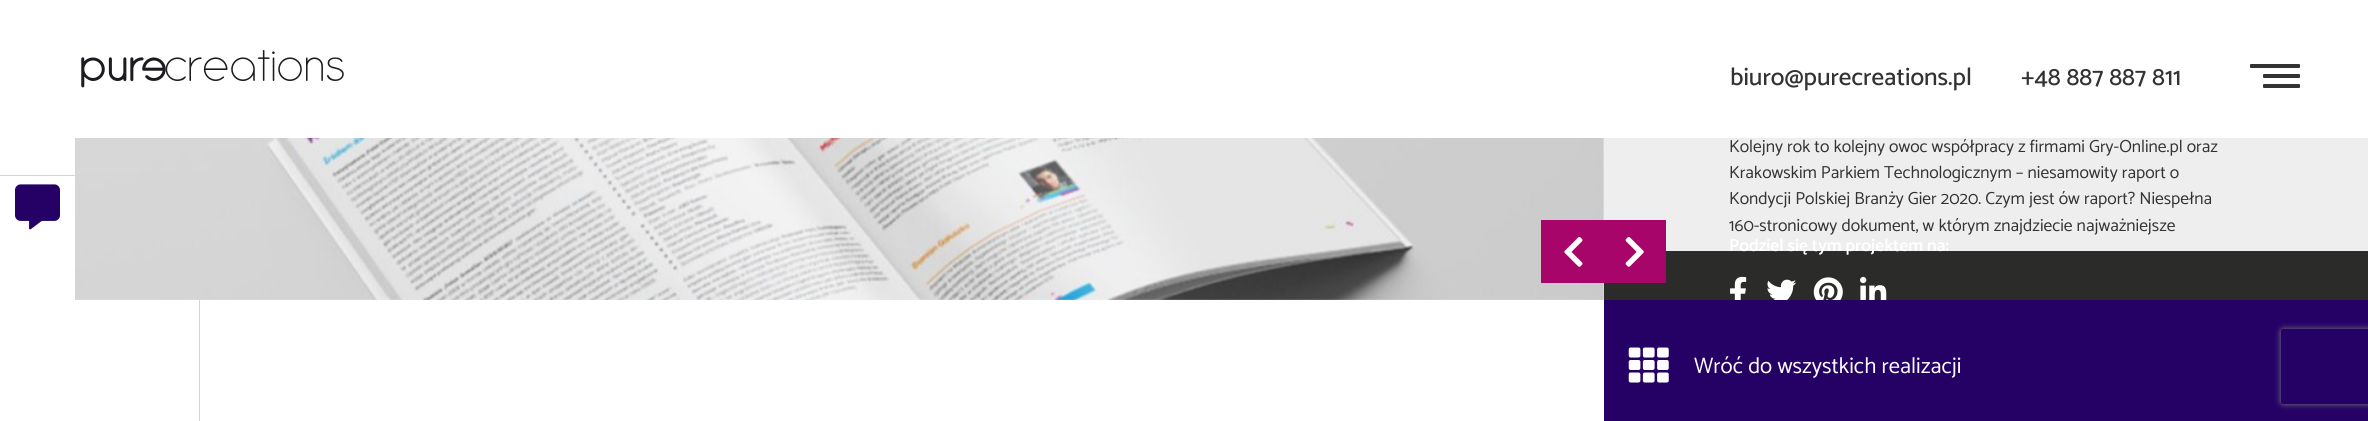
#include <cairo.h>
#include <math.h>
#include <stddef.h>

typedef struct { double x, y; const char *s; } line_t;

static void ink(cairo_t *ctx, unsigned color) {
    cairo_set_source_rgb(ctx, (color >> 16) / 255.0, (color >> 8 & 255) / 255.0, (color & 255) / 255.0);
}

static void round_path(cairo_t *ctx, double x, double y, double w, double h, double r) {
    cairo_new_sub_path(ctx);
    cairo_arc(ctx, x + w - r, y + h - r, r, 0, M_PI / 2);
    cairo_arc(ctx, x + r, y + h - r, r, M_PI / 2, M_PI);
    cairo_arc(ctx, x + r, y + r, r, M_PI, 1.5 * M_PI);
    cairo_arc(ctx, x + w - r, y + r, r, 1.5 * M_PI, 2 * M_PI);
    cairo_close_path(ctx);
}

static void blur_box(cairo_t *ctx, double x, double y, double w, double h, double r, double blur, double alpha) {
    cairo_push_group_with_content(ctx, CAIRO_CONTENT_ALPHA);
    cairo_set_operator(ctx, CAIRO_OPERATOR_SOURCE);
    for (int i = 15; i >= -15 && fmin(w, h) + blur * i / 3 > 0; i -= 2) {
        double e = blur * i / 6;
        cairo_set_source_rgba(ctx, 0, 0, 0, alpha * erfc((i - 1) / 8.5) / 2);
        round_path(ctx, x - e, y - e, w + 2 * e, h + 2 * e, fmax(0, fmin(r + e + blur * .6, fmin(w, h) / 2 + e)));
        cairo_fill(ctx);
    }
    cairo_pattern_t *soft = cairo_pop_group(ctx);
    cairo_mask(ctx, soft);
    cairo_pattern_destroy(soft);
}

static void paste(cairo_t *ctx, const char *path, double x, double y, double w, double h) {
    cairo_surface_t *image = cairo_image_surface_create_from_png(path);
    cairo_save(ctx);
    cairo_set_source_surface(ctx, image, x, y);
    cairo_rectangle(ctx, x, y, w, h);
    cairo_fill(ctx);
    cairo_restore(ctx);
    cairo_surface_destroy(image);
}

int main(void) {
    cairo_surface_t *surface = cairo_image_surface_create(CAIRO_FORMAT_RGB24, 2368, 421);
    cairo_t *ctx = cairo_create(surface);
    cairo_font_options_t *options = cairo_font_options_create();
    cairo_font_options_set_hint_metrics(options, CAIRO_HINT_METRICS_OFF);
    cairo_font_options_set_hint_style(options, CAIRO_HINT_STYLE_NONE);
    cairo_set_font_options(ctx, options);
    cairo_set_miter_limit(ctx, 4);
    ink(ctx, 0xFFFFFF);
    cairo_paint(ctx);
    paste(ctx, "media/1.png", 81, 50, 263, 38);
    cairo_select_font_face(ctx, "Catamaran Medium", CAIRO_FONT_SLANT_NORMAL, CAIRO_FONT_WEIGHT_NORMAL);
    cairo_set_font_size(ctx, 25);
    ink(ctx, 0x333333);
    cairo_move_to(ctx, 1730, 85);
    cairo_show_text(ctx, "biuro@purecreations.pl");
    cairo_move_to(ctx, 2021, 85);
    cairo_show_text(ctx, "+48 887 887 811");
    round_path(ctx, 2250, 64, 50, 4, 1);
    cairo_fill(ctx);
    round_path(ctx, 2263, 74, 37, 4, 1);
    cairo_fill(ctx);
    round_path(ctx, 2263, 84, 37, 4, 1);
    cairo_fill(ctx);
    paste(ctx, "media/2.png", 15, 184, 45, 46);
    paste(ctx, "media/3.png", 75, 138, 1529, 162);
    ink(ctx, 0xEEEEEE);
    cairo_rectangle(ctx, 1604, 138, 764, 113);
    cairo_fill(ctx);
    cairo_select_font_face(ctx, "Catamaran", CAIRO_FONT_SLANT_NORMAL, CAIRO_FONT_WEIGHT_NORMAL);
    cairo_set_font_size(ctx, 17.5);
    ink(ctx, 0x333333);
    {
        static const line_t items[] = {
            {1729, 152, "Kolejny rok to kolejny owoc współpracy z firmami Gry-Online.pl oraz"},
            {1729, 178, "Krakowskim Parkiem Technologicznym – niesamowity raport o"},
            {1729, 204, "Kondycji Polskiej Branży Gier 2020. Czym jest ów raport? Niespełna"},
            {1729, 231, "160-stronicowy dokument, w którym znajdziecie najważniejsze"},
        };
        for (size_t i = 0; i < sizeof items / sizeof *items; i++) {
            cairo_move_to(ctx, items[i].x, items[i].y);
            cairo_show_text(ctx, items[i].s);
        }
    }
    ink(ctx, 0x2B2B2A);
    cairo_rectangle(ctx, 1604, 251, 764, 49);
    cairo_fill(ctx);
    ink(ctx, 0xA70569);
    cairo_rectangle(ctx, 1541, 220, 125, 63);
    cairo_fill(ctx);
    paste(ctx, "media/4.png", 1564, 237, 19, 30);
    paste(ctx, "media/5.png", 1625, 237, 19, 30);
    cairo_select_font_face(ctx, "Catamaran SemiBold", CAIRO_FONT_SLANT_NORMAL, CAIRO_FONT_WEIGHT_NORMAL);
    ink(ctx, 0xFFFFFF);
    cairo_move_to(ctx, 1729, 251);
    cairo_show_text(ctx, "Podziel się tym projektem na:");
    paste(ctx, "media/6.png", 1730, 276, 17, 24);
    paste(ctx, "media/7.png", 1767, 279, 30, 21);
    paste(ctx, "media/8.png", 1813, 277, 30, 23);
    paste(ctx, "media/9.png", 1860, 276, 27, 24);
    cairo_rectangle(ctx, -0.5, 175.5, 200, 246);
    ink(ctx, 0xEDC1FB);
    cairo_set_line_width(ctx, 1);
    cairo_stroke(ctx);
    ink(ctx, 0x250165);
    cairo_rectangle(ctx, 1604, 300, 764, 121);
    cairo_fill(ctx);
    paste(ctx, "media/10.png", 1628, 347, 41, 36);
    cairo_select_font_face(ctx, "Catamaran", CAIRO_FONT_SLANT_NORMAL, CAIRO_FONT_WEIGHT_NORMAL);
    cairo_set_font_size(ctx, 22.5);
    ink(ctx, 0xFFFFFF);
    cairo_move_to(ctx, 1694, 373);
    cairo_show_text(ctx, "Wróć do wszystkich realizacji");
    cairo_save(ctx);
    cairo_set_fill_rule(ctx, CAIRO_FILL_RULE_EVEN_ODD);
    cairo_new_path(ctx);
    cairo_move_to(ctx, 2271, 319);
    cairo_line_to(ctx, 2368, 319);
    cairo_line_to(ctx, 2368, 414);
    cairo_line_to(ctx, 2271, 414);
    cairo_close_path(ctx);
    cairo_move_to(ctx, 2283.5, 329);
    cairo_line_to(ctx, 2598.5, 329);
    cairo_curve_to(ctx, 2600, 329, 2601, 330, 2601, 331.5);
    cairo_line_to(ctx, 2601, 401.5);
    cairo_curve_to(ctx, 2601, 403, 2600, 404, 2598.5, 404);
    cairo_line_to(ctx, 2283.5, 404);
    cairo_curve_to(ctx, 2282, 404, 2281, 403, 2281, 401.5);
    cairo_line_to(ctx, 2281, 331.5);
    cairo_curve_to(ctx, 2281, 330, 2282, 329, 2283.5, 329);
    cairo_close_path(ctx);
    cairo_clip(ctx);
    ink(ctx, 0x808080);
    blur_box(ctx, 2281, 329, 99, 75, 2.5, 3, 1);
    cairo_restore(ctx);
    cairo_surface_write_to_png(surface, "image.png");
    cairo_font_options_destroy(options);
    cairo_destroy(ctx);
    cairo_surface_destroy(surface);
    return 0;
}
